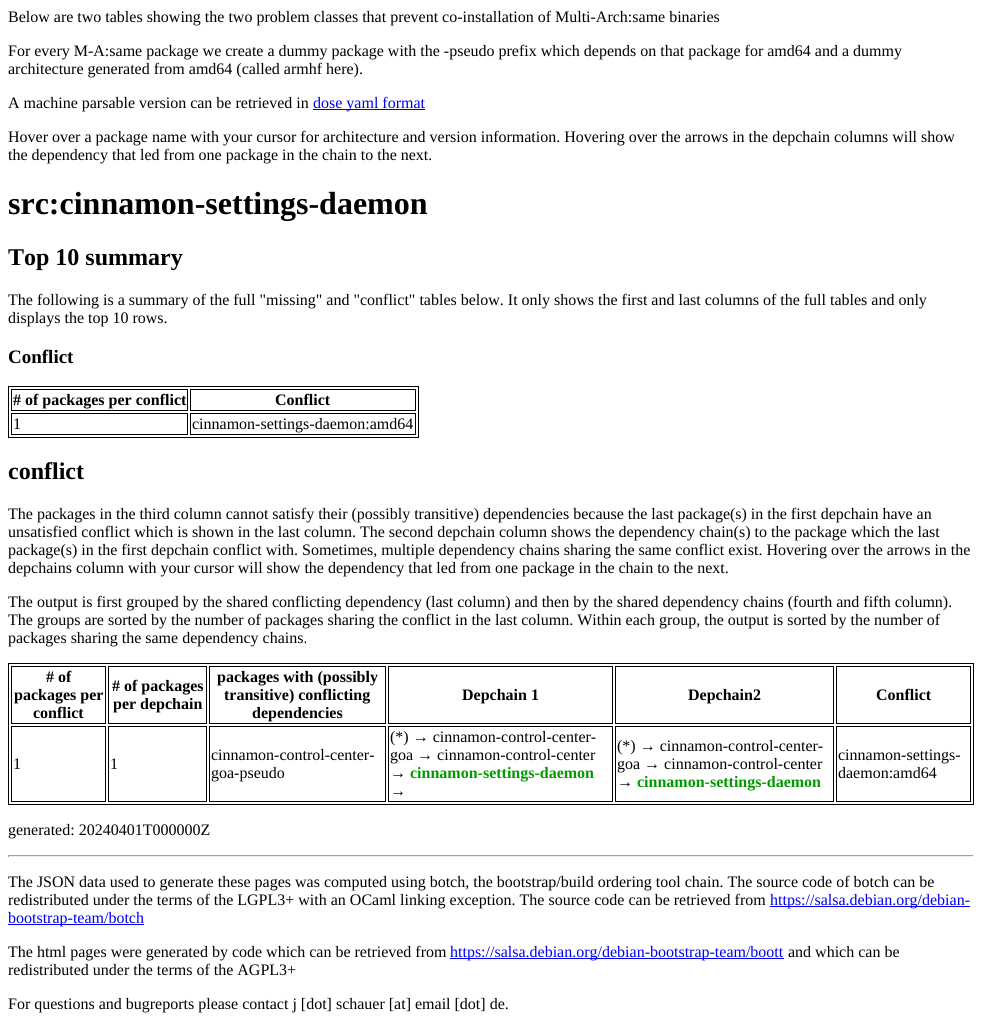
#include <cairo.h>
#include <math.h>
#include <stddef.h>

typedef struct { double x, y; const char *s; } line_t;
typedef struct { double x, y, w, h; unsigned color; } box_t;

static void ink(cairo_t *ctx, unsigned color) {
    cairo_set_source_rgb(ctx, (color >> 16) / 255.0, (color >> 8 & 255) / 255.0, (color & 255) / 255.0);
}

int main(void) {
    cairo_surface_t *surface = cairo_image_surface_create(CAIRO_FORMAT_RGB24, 982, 1033);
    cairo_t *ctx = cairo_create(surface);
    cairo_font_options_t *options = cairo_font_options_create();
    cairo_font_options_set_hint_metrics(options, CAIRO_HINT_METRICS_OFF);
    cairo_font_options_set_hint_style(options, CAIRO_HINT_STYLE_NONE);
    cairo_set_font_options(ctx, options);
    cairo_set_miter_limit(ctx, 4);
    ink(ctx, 0xFFFFFF);
    cairo_paint(ctx);
    cairo_select_font_face(ctx, "Liberation Serif", CAIRO_FONT_SLANT_NORMAL, CAIRO_FONT_WEIGHT_NORMAL);
    cairo_set_font_size(ctx, 16);
    ink(ctx, 0x000000);
    {
        static const line_t items[] = {
            {8, 22, "Below are two tables showing the two problem classes that prevent co-installation of Multi-Arch:same binaries"},
            {8, 56, "For every M-A:same package we create a dummy package with the -pseudo prefix which depends on that package for amd64 and a dummy"},
            {8, 74, "architecture generated from amd64 (called armhf here)."},
            {8, 108, "A machine parsable version can be retrieved in"},
        };
        for (size_t i = 0; i < sizeof items / sizeof *items; i++) {
            cairo_move_to(ctx, items[i].x, items[i].y);
            cairo_show_text(ctx, items[i].s);
        }
    }
    ink(ctx, 0x0000EE);
    cairo_rectangle(ctx, 313, 109, 112, 1);
    cairo_fill(ctx);
    cairo_move_to(ctx, 313, 108);
    cairo_show_text(ctx, "dose yaml format");
    ink(ctx, 0x000000);
    cairo_move_to(ctx, 8, 142);
    cairo_show_text(ctx, "Hover over a package name with your cursor for architecture and version information. Hovering over the arrows in the depchain columns will show");
    cairo_move_to(ctx, 8, 160);
    cairo_show_text(ctx, "the dependency that led from one package in the chain to the next.");
    cairo_select_font_face(ctx, "Liberation Serif", CAIRO_FONT_SLANT_NORMAL, CAIRO_FONT_WEIGHT_BOLD);
    cairo_set_font_size(ctx, 32);
    cairo_move_to(ctx, 8, 214);
    cairo_show_text(ctx, "src:cinnamon-settings-daemon");
    cairo_set_font_size(ctx, 24);
    cairo_move_to(ctx, 8, 265);
    cairo_show_text(ctx, "Top 10 summary");
    cairo_select_font_face(ctx, "Liberation Serif", CAIRO_FONT_SLANT_NORMAL, CAIRO_FONT_WEIGHT_NORMAL);
    cairo_set_font_size(ctx, 16);
    cairo_move_to(ctx, 8, 305);
    cairo_show_text(ctx, "The following is a summary of the full \"missing\" and \"conflict\" tables below. It only shows the first and last columns of the full tables and only");
    cairo_move_to(ctx, 8, 323);
    cairo_show_text(ctx, "displays the top 10 rows.");
    cairo_select_font_face(ctx, "Liberation Serif", CAIRO_FONT_SLANT_NORMAL, CAIRO_FONT_WEIGHT_BOLD);
    cairo_set_font_size(ctx, 19);
    cairo_move_to(ctx, 8, 363);
    cairo_show_text(ctx, "Conflict");
    cairo_rectangle(ctx, 8.5, 386.5, 410, 51);
    cairo_set_line_width(ctx, 1);
    cairo_stroke(ctx);
    cairo_rectangle(ctx, 11.5, 389.5, 176, 21);
    cairo_stroke(ctx);
    cairo_set_font_size(ctx, 16);
    cairo_move_to(ctx, 13, 405);
    cairo_show_text(ctx, "# of packages per conflict");
    cairo_rectangle(ctx, 190.5, 389.5, 225, 21);
    cairo_stroke(ctx);
    cairo_move_to(ctx, 275, 405);
    cairo_show_text(ctx, "Conflict");
    cairo_rectangle(ctx, 11.5, 413.5, 176, 21);
    cairo_stroke(ctx);
    cairo_select_font_face(ctx, "Liberation Serif", CAIRO_FONT_SLANT_NORMAL, CAIRO_FONT_WEIGHT_NORMAL);
    cairo_move_to(ctx, 13, 429);
    cairo_show_text(ctx, "1");
    cairo_rectangle(ctx, 190.5, 413.5, 225, 21);
    cairo_stroke(ctx);
    cairo_move_to(ctx, 192, 429);
    cairo_show_text(ctx, "cinnamon-settings-daemon:amd64");
    cairo_select_font_face(ctx, "Liberation Serif", CAIRO_FONT_SLANT_NORMAL, CAIRO_FONT_WEIGHT_BOLD);
    cairo_set_font_size(ctx, 24);
    cairo_move_to(ctx, 8, 479);
    cairo_show_text(ctx, "conflict");
    cairo_select_font_face(ctx, "Liberation Serif", CAIRO_FONT_SLANT_NORMAL, CAIRO_FONT_WEIGHT_NORMAL);
    cairo_set_font_size(ctx, 16);
    {
        static const line_t items[] = {
            {8, 519, "The packages in the third column cannot satisfy their (possibly transitive) dependencies because the last package(s) in the first depchain have an"},
            {8, 537, "unsatisfied conflict which is shown in the last column. The second depchain column shows the dependency chain(s) to the package which the last"},
            {8, 555, "package(s) in the first depchain conflict with. Sometimes, multiple dependency chains sharing the same conflict exist. Hovering over the arrows in the"},
            {8, 573, "depchains column with your cursor will show the dependency that led from one package in the chain to the next."},
            {8, 607, "The output is first grouped by the shared conflicting dependency (last column) and then by the shared dependency chains (fourth and fifth column)."},
            {8, 625, "The groups are sorted by the number of packages sharing the conflict in the last column. Within each group, the output is sorted by the number of"},
            {8, 643, "packages sharing the same dependency chains."},
        };
        for (size_t i = 0; i < sizeof items / sizeof *items; i++) {
            cairo_move_to(ctx, items[i].x, items[i].y);
            cairo_show_text(ctx, items[i].s);
        }
    }
    cairo_rectangle(ctx, 8.5, 663.5, 965, 141);
    cairo_stroke(ctx);
    cairo_rectangle(ctx, 11.5, 666.5, 94, 57);
    cairo_stroke(ctx);
    cairo_select_font_face(ctx, "Liberation Serif", CAIRO_FONT_SLANT_NORMAL, CAIRO_FONT_WEIGHT_BOLD);
    {
        static const line_t items[] = {
            {46, 682, "# of"},
            {14, 700, "packages per"},
            {33, 718, "conflict"},
        };
        for (size_t i = 0; i < sizeof items / sizeof *items; i++) {
            cairo_move_to(ctx, items[i].x, items[i].y);
            cairo_show_text(ctx, items[i].s);
        }
    }
    cairo_rectangle(ctx, 108.5, 666.5, 98, 57);
    cairo_stroke(ctx);
    cairo_move_to(ctx, 112, 691);
    cairo_show_text(ctx, "# of packages");
    cairo_move_to(ctx, 113, 709);
    cairo_show_text(ctx, "per depchain");
    cairo_rectangle(ctx, 209.5, 666.5, 176, 57);
    cairo_stroke(ctx);
    {
        static const line_t items[] = {
            {217, 682, "packages with (possibly"},
            {224, 700, "transitive) conflicting"},
            {252, 718, "dependencies"},
        };
        for (size_t i = 0; i < sizeof items / sizeof *items; i++) {
            cairo_move_to(ctx, items[i].x, items[i].y);
            cairo_show_text(ctx, items[i].s);
        }
    }
    cairo_rectangle(ctx, 388.5, 666.5, 224, 57);
    cairo_stroke(ctx);
    cairo_move_to(ctx, 462, 700);
    cairo_show_text(ctx, "Depchain 1");
    cairo_rectangle(ctx, 615.5, 666.5, 218, 57);
    cairo_stroke(ctx);
    cairo_move_to(ctx, 688, 700);
    cairo_show_text(ctx, "Depchain2");
    cairo_rectangle(ctx, 836.5, 666.5, 134, 57);
    cairo_stroke(ctx);
    cairo_move_to(ctx, 876, 700);
    cairo_show_text(ctx, "Conflict");
    cairo_rectangle(ctx, 11.5, 726.5, 94, 75);
    cairo_stroke(ctx);
    cairo_select_font_face(ctx, "Liberation Serif", CAIRO_FONT_SLANT_NORMAL, CAIRO_FONT_WEIGHT_NORMAL);
    cairo_move_to(ctx, 13, 769);
    cairo_show_text(ctx, "1");
    cairo_rectangle(ctx, 108.5, 726.5, 98, 75);
    cairo_stroke(ctx);
    cairo_move_to(ctx, 110, 769);
    cairo_show_text(ctx, "1");
    cairo_rectangle(ctx, 209.5, 726.5, 176, 75);
    cairo_stroke(ctx);
    cairo_move_to(ctx, 211, 760);
    cairo_show_text(ctx, "cinnamon-control-center-");
    cairo_move_to(ctx, 211, 778);
    cairo_show_text(ctx, "goa-pseudo");
    cairo_rectangle(ctx, 388.5, 726.5, 224, 75);
    cairo_stroke(ctx);
    {
        static const line_t items[] = {
            {390, 742, "(*) → cinnamon-control-center-"},
            {390, 760, "goa → cinnamon-control-center"},
            {390, 778, "→"},
        };
        for (size_t i = 0; i < sizeof items / sizeof *items; i++) {
            cairo_move_to(ctx, items[i].x, items[i].y);
            cairo_show_text(ctx, items[i].s);
        }
    }
    cairo_select_font_face(ctx, "Liberation Serif", CAIRO_FONT_SLANT_NORMAL, CAIRO_FONT_WEIGHT_BOLD);
    ink(ctx, 0x009900);
    cairo_move_to(ctx, 410, 778);
    cairo_show_text(ctx, "cinnamon-settings-daemon");
    cairo_select_font_face(ctx, "Liberation Serif", CAIRO_FONT_SLANT_NORMAL, CAIRO_FONT_WEIGHT_NORMAL);
    ink(ctx, 0x000000);
    cairo_move_to(ctx, 390, 796);
    cairo_show_text(ctx, "→");
    cairo_rectangle(ctx, 615.5, 726.5, 218, 75);
    cairo_stroke(ctx);
    {
        static const line_t items[] = {
            {617, 751, "(*) → cinnamon-control-center-"},
            {617, 769, "goa → cinnamon-control-center"},
            {617, 787, "→"},
        };
        for (size_t i = 0; i < sizeof items / sizeof *items; i++) {
            cairo_move_to(ctx, items[i].x, items[i].y);
            cairo_show_text(ctx, items[i].s);
        }
    }
    cairo_select_font_face(ctx, "Liberation Serif", CAIRO_FONT_SLANT_NORMAL, CAIRO_FONT_WEIGHT_BOLD);
    ink(ctx, 0x009900);
    cairo_move_to(ctx, 637, 787);
    cairo_show_text(ctx, "cinnamon-settings-daemon");
    cairo_rectangle(ctx, 836.5, 726.5, 134, 75);
    ink(ctx, 0x000000);
    cairo_stroke(ctx);
    cairo_select_font_face(ctx, "Liberation Serif", CAIRO_FONT_SLANT_NORMAL, CAIRO_FONT_WEIGHT_NORMAL);
    {
        static const line_t items[] = {
            {838, 760, "cinnamon-settings-"},
            {838, 778, "daemon:amd64"},
            {8, 835, "generated: 20240401T000000Z"},
        };
        for (size_t i = 0; i < sizeof items / sizeof *items; i++) {
            cairo_move_to(ctx, items[i].x, items[i].y);
            cairo_show_text(ctx, items[i].s);
        }
    }
    {
        static const box_t items[] = {
            {8, 855, 966, 1, 0x9F9F9F},
            {973, 855, 1, 2, 0xEEEEEE},
            {8, 856, 966, 1, 0xEEEEEE},
            {8, 855, 1, 2, 0x9F9F9F},
        };
        for (size_t i = 0; i < sizeof items / sizeof *items; i++) {
            ink(ctx, items[i].color);
            cairo_rectangle(ctx, items[i].x, items[i].y, items[i].w, items[i].h);
            cairo_fill(ctx);
        }
    }
    ink(ctx, 0x000000);
    cairo_move_to(ctx, 8, 887);
    cairo_show_text(ctx, "The JSON data used to generate these pages was computed using botch, the bootstrap/build ordering tool chain. The source code of botch can be");
    cairo_move_to(ctx, 8, 905);
    cairo_show_text(ctx, "redistributed under the terms of the LGPL3+ with an OCaml linking exception. The source code can be retrieved from");
    ink(ctx, 0x0000EE);
    cairo_rectangle(ctx, 770, 906, 200, 1);
    cairo_fill(ctx);
    cairo_move_to(ctx, 770, 905);
    cairo_show_text(ctx, "https://salsa.debian.org/debian-");
    cairo_rectangle(ctx, 8, 924, 136, 1);
    cairo_fill(ctx);
    cairo_move_to(ctx, 8, 923);
    cairo_show_text(ctx, "bootstrap-team/botch");
    ink(ctx, 0x000000);
    cairo_move_to(ctx, 8, 957);
    cairo_show_text(ctx, "The html pages were generated by code which can be retrieved from");
    ink(ctx, 0x0000EE);
    cairo_rectangle(ctx, 450, 958, 334, 1);
    cairo_fill(ctx);
    cairo_move_to(ctx, 450, 957);
    cairo_show_text(ctx, "https://salsa.debian.org/debian-bootstrap-team/boott");
    ink(ctx, 0x000000);
    {
        static const line_t items[] = {
            {788, 957, "and which can be"},
            {8, 975, "redistributed under the terms of the AGPL3+"},
            {8, 1009, "For questions and bugreports please contact j [dot] schauer [at] email [dot] de."},
        };
        for (size_t i = 0; i < sizeof items / sizeof *items; i++) {
            cairo_move_to(ctx, items[i].x, items[i].y);
            cairo_show_text(ctx, items[i].s);
        }
    }
    cairo_surface_write_to_png(surface, "image.png");
    cairo_font_options_destroy(options);
    cairo_destroy(ctx);
    cairo_surface_destroy(surface);
    return 0;
}
